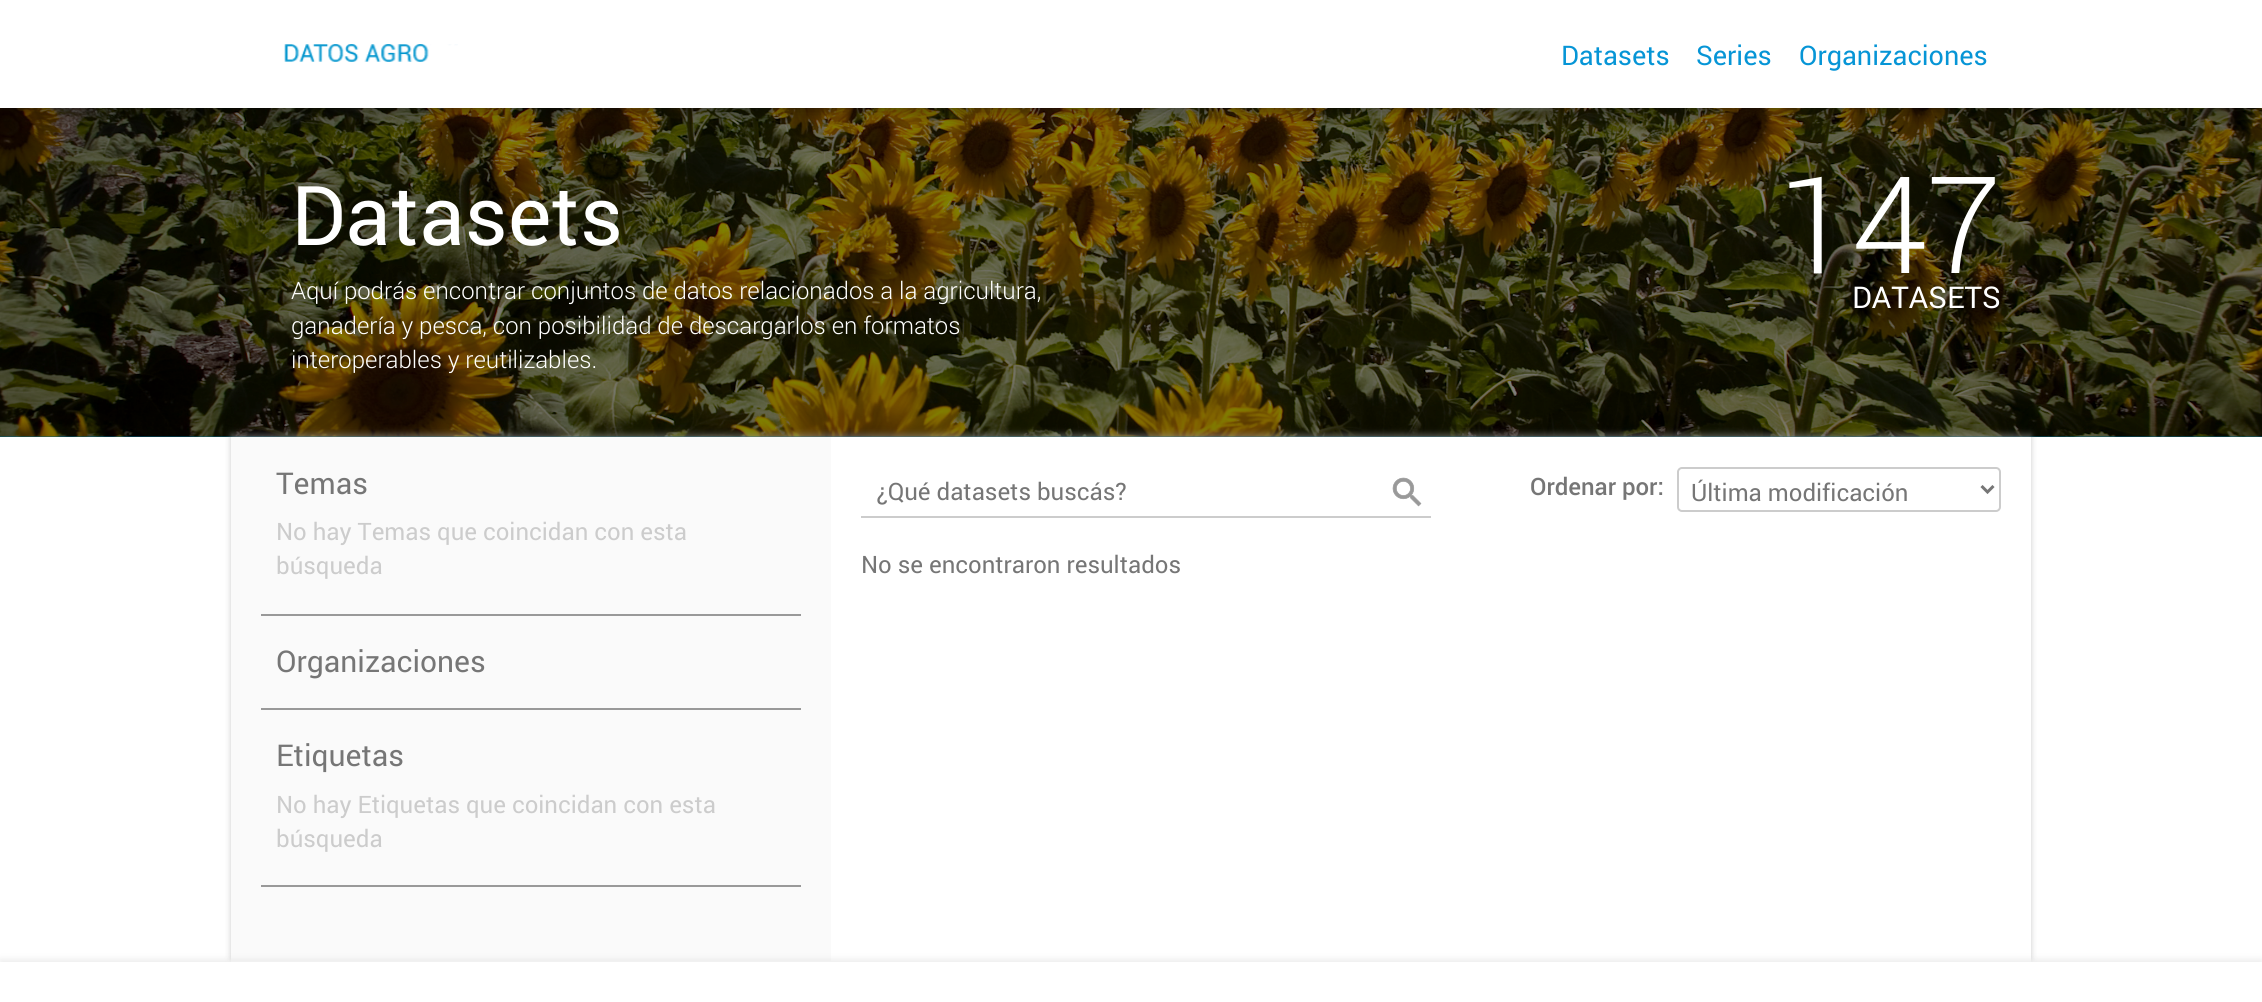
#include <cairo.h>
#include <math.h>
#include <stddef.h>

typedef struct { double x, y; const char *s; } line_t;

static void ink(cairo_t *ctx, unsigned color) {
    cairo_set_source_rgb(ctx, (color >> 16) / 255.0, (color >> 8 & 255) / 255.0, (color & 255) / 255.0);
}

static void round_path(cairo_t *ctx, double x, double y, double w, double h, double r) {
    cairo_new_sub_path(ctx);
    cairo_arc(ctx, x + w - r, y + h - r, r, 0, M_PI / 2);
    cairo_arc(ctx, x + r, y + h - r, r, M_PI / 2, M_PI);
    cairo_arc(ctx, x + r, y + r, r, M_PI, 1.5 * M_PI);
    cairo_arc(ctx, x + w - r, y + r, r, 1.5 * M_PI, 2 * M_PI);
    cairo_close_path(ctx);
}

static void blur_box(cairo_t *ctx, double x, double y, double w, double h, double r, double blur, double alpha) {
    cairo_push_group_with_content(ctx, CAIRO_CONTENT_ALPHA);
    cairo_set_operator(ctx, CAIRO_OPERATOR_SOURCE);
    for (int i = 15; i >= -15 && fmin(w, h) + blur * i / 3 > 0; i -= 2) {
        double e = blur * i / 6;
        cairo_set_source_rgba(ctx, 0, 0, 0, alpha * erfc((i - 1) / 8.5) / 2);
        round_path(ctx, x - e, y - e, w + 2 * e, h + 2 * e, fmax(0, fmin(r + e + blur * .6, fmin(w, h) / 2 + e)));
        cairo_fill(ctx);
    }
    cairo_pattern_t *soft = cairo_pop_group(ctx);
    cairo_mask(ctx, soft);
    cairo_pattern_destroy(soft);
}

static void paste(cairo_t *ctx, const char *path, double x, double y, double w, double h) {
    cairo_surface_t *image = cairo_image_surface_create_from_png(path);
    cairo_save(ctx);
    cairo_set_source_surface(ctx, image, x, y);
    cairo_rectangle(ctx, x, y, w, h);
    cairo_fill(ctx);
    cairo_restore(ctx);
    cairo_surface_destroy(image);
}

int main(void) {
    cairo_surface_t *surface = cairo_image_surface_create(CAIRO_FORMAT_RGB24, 2262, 1002);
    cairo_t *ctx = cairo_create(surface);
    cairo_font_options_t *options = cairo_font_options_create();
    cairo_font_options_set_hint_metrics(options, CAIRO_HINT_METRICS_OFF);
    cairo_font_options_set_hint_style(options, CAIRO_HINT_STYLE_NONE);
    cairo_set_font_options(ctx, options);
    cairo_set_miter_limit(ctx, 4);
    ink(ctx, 0xFFFFFF);
    cairo_paint(ctx);
    ink(ctx, 0x005D79);
    cairo_rectangle(ctx, 0, 436, 2262, 1);
    cairo_fill(ctx);
    paste(ctx, "media/2.png", 0, 108, 2262, 329);
    cairo_save(ctx);
    cairo_rectangle(ctx, 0, 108, 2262, 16);
    cairo_clip(ctx);
    ink(ctx, 0x000000);
    blur_box(ctx, 0, 0, 2262, 108, 0, 9, 0.5);
    cairo_restore(ctx);
    paste(ctx, "media/1.png", 284, 44, 174, 18);
    cairo_select_font_face(ctx, "Roboto", CAIRO_FONT_SLANT_NORMAL, CAIRO_FONT_WEIGHT_NORMAL);
    cairo_set_font_size(ctx, 27);
    ink(ctx, 0x0695D6);
    {
        static const line_t items[] = {
            {1561, 65, "Datasets"},
            {1696, 65, "Series"},
            {1799, 65, "Organizaciones"},
        };
        for (size_t i = 0; i < sizeof items / sizeof *items; i++) {
            cairo_move_to(ctx, items[i].x, items[i].y);
            cairo_show_text(ctx, items[i].s);
        }
    }
    cairo_set_font_size(ctx, 82.5);
    ink(ctx, 0xFFFFFF);
    cairo_move_to(ctx, 291, 245);
    cairo_show_text(ctx, "Datasets");
    cairo_select_font_face(ctx, "Roboto Light", CAIRO_FONT_SLANT_NORMAL, CAIRO_FONT_WEIGHT_NORMAL);
    cairo_set_font_size(ctx, 24);
    {
        static const line_t items[] = {
            {291, 299, "Aquí podrás encontrar conjuntos de datos relacionados a la agricultura,"},
            {291, 334, "ganadería y pesca, con posibilidad de descargarlos en formatos"},
            {291, 368, "interoperables y reutilizables."},
        };
        for (size_t i = 0; i < sizeof items / sizeof *items; i++) {
            cairo_move_to(ctx, items[i].x, items[i].y);
            cairo_show_text(ctx, items[i].s);
        }
    }
    cairo_set_font_size(ctx, 135);
    cairo_move_to(ctx, 1777, 273);
    cairo_show_text(ctx, "147");
    cairo_select_font_face(ctx, "Roboto", CAIRO_FONT_SLANT_NORMAL, CAIRO_FONT_WEIGHT_NORMAL);
    cairo_set_font_size(ctx, 30);
    cairo_move_to(ctx, 1852, 308);
    cairo_show_text(ctx, "DATASETS");
    cairo_save(ctx);
    cairo_set_fill_rule(ctx, CAIRO_FILL_RULE_EVEN_ODD);
    cairo_new_path(ctx);
    cairo_move_to(ctx, 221, 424);
    cairo_line_to(ctx, 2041, 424);
    cairo_line_to(ctx, 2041, 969);
    cairo_line_to(ctx, 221, 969);
    cairo_close_path(ctx);
    cairo_move_to(ctx, 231, 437);
    cairo_line_to(ctx, 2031, 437);
    cairo_line_to(ctx, 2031, 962);
    cairo_line_to(ctx, 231, 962);
    cairo_close_path(ctx);
    cairo_clip(ctx);
    ink(ctx, 0x969696);
    blur_box(ctx, 231, 434, 1800, 525, 0, 3, 0.5);
    cairo_restore(ctx);
    ink(ctx, 0xFAFAFA);
    cairo_rectangle(ctx, 231, 437, 600, 524);
    cairo_fill(ctx);
    ink(ctx, 0x767676);
    cairo_move_to(ctx, 276, 494);
    cairo_show_text(ctx, "Temas");
    cairo_set_font_size(ctx, 24);
    ink(ctx, 0xCCCCCC);
    cairo_move_to(ctx, 276, 540);
    cairo_show_text(ctx, "No hay Temas que coincidan con esta");
    cairo_move_to(ctx, 276, 574);
    cairo_show_text(ctx, "búsqueda");
    ink(ctx, 0x999999);
    cairo_rectangle(ctx, 261, 614, 540, 2);
    cairo_fill(ctx);
    cairo_set_font_size(ctx, 30);
    ink(ctx, 0x767676);
    cairo_move_to(ctx, 276, 672);
    cairo_show_text(ctx, "Organizaciones");
    ink(ctx, 0x999999);
    cairo_rectangle(ctx, 261, 708, 540, 2);
    cairo_fill(ctx);
    ink(ctx, 0x767676);
    cairo_move_to(ctx, 276, 766);
    cairo_show_text(ctx, "Etiquetas");
    cairo_set_font_size(ctx, 24);
    ink(ctx, 0xCCCCCC);
    cairo_move_to(ctx, 276, 813);
    cairo_show_text(ctx, "No hay Etiquetas que coincidan con esta");
    cairo_move_to(ctx, 276, 847);
    cairo_show_text(ctx, "búsqueda");
    ink(ctx, 0x999999);
    cairo_rectangle(ctx, 261, 885, 540, 2);
    cairo_fill(ctx);
    ink(ctx, 0xCCCCCC);
    cairo_rectangle(ctx, 861, 516, 570, 2);
    cairo_fill(ctx);
    ink(ctx, 0x767676);
    cairo_move_to(ctx, 876, 500);
    cairo_show_text(ctx, "¿Qué datasets buscás?");
    paste(ctx, "media/3.png", 1392, 477, 30, 30);
    cairo_select_font_face(ctx, "Roboto Medium", CAIRO_FONT_SLANT_NORMAL, CAIRO_FONT_WEIGHT_NORMAL);
    cairo_move_to(ctx, 1530, 495);
    cairo_show_text(ctx, "Ordenar por:");
    round_path(ctx, 1678, 468, 322, 43, 4);
    ink(ctx, 0xCCCCCC);
    cairo_stroke(ctx);
    cairo_new_path(ctx);
    cairo_move_to(ctx, 1981.5, 486);
    cairo_line_to(ctx, 1987.5, 492);
    cairo_line_to(ctx, 1993.5, 486);
    ink(ctx, 0x767676);
    cairo_set_line_width(ctx, 3);
    cairo_stroke(ctx);
    cairo_select_font_face(ctx, "Roboto", CAIRO_FONT_SLANT_NORMAL, CAIRO_FONT_WEIGHT_NORMAL);
    cairo_move_to(ctx, 1691, 501);
    cairo_show_text(ctx, "Última modificación");
    cairo_move_to(ctx, 861, 573);
    cairo_show_text(ctx, "No se encontraron resultados");
    ink(ctx, 0xDCDCDC);
    blur_box(ctx, 0, 959, 2262, 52, 0, 3, 0.5);
    ink(ctx, 0xFFFFFF);
    cairo_rectangle(ctx, 0, 962, 2262, 40);
    cairo_fill(ctx);
    cairo_surface_write_to_png(surface, "image.png");
    cairo_font_options_destroy(options);
    cairo_destroy(ctx);
    cairo_surface_destroy(surface);
    return 0;
}
